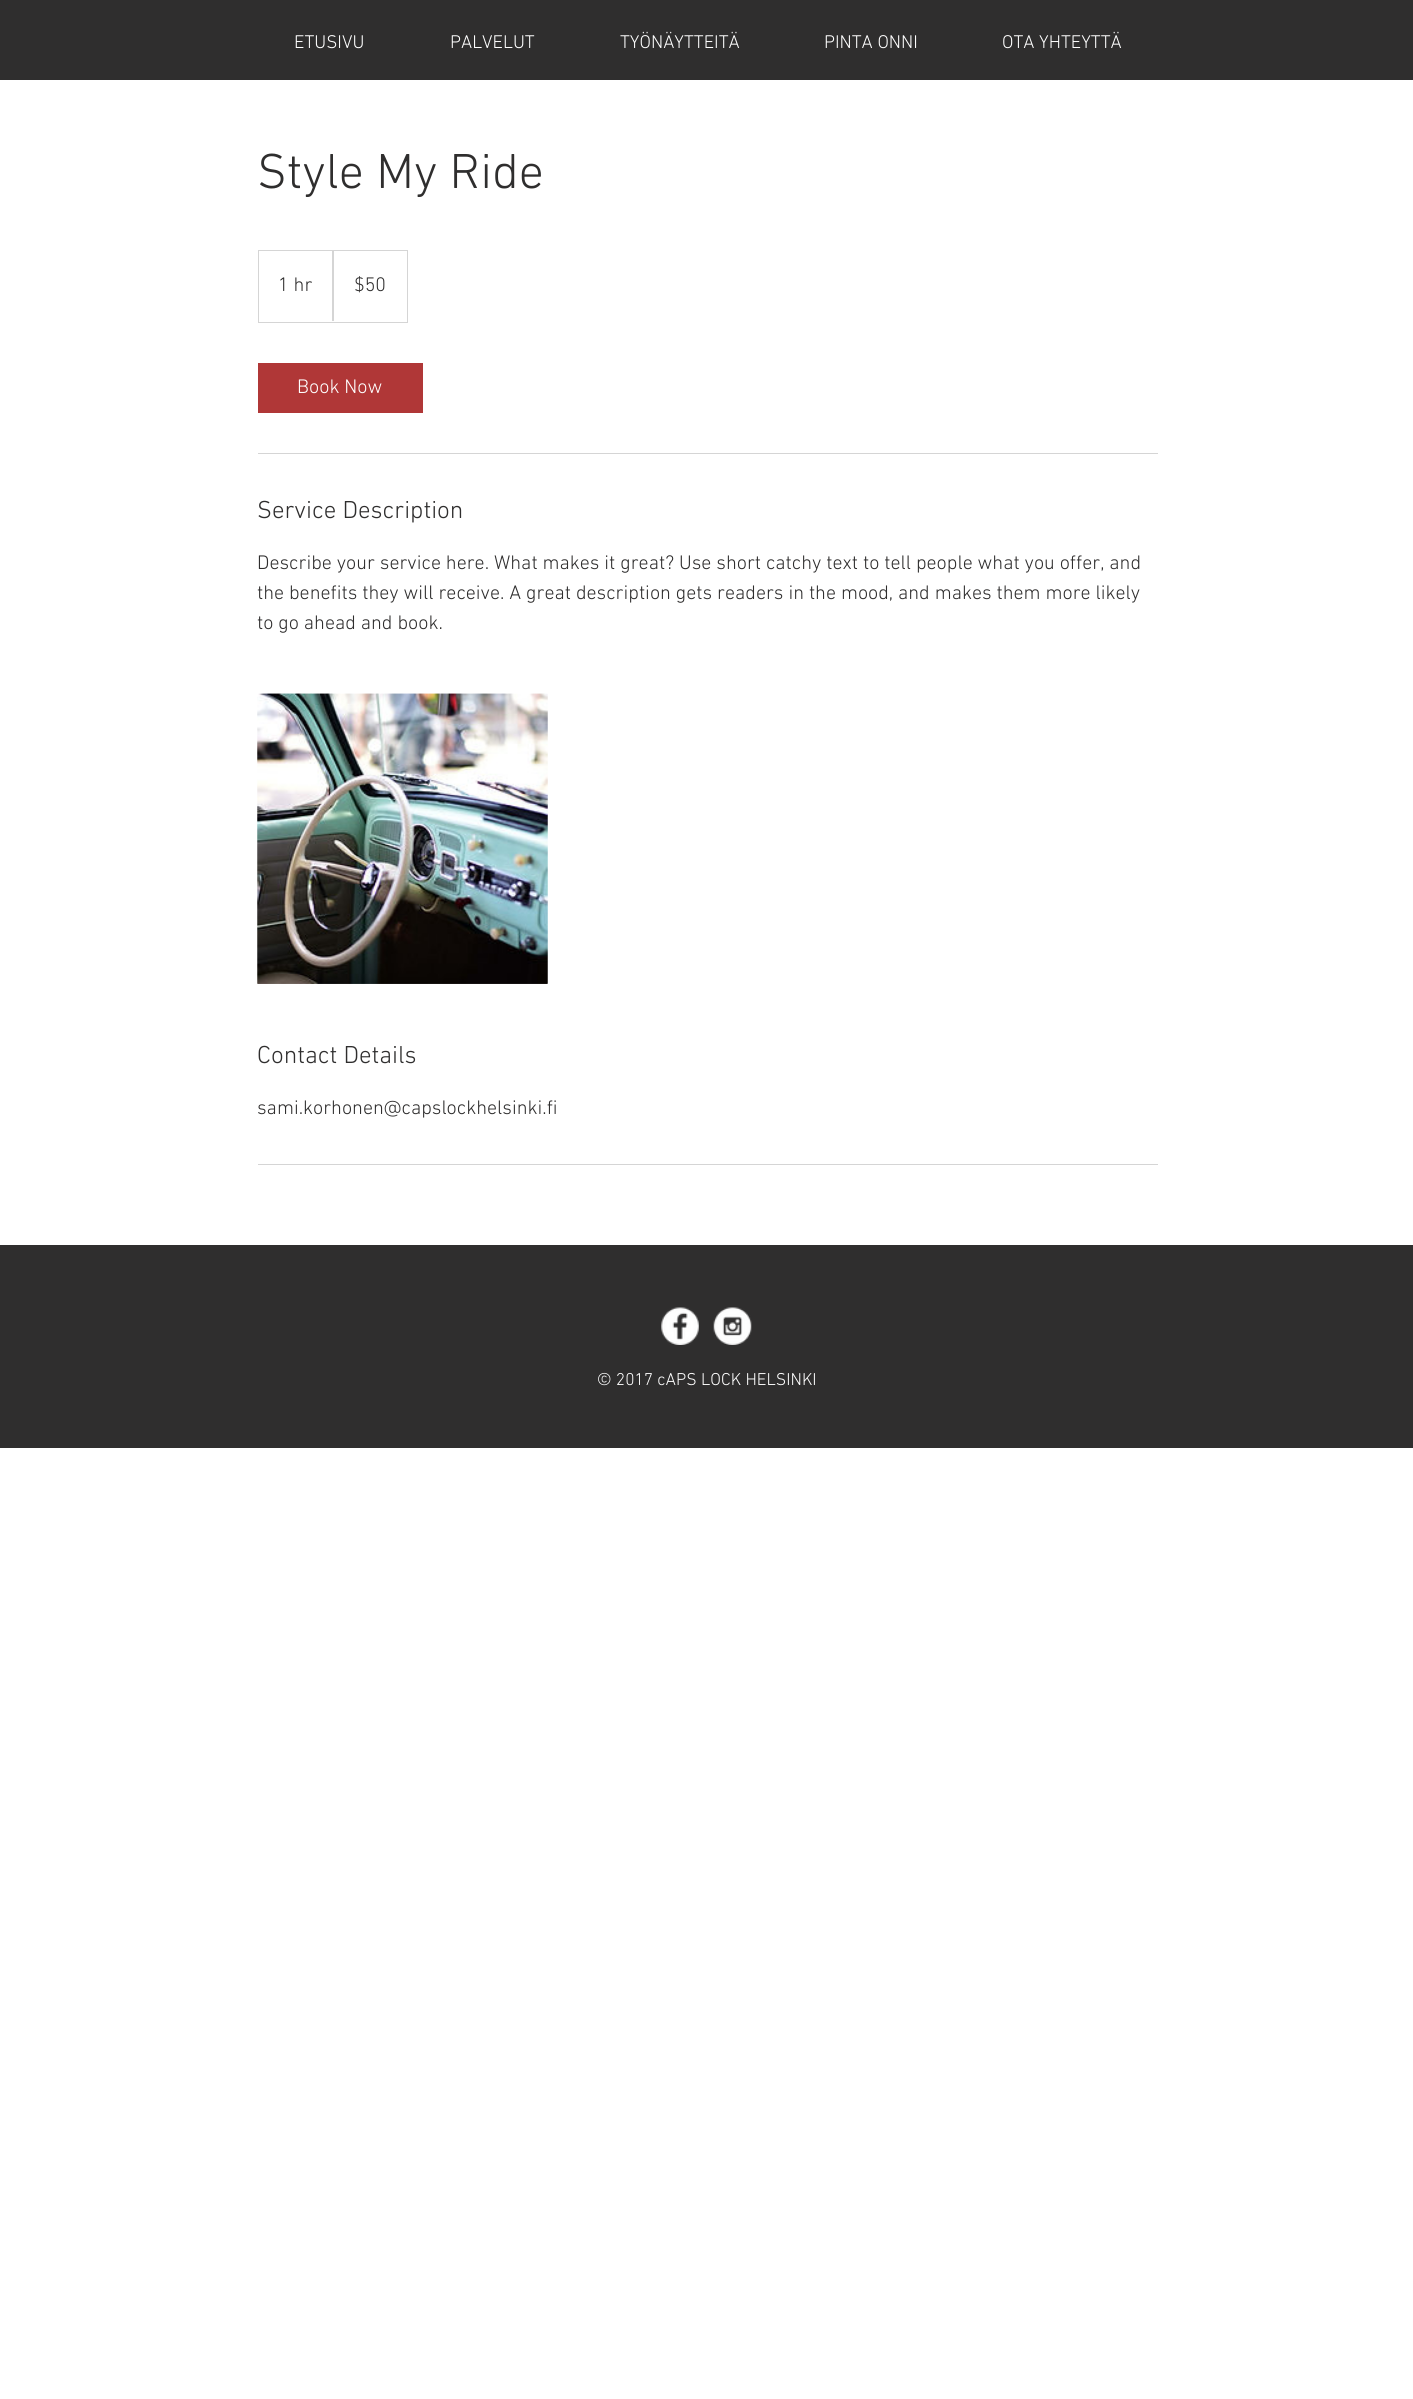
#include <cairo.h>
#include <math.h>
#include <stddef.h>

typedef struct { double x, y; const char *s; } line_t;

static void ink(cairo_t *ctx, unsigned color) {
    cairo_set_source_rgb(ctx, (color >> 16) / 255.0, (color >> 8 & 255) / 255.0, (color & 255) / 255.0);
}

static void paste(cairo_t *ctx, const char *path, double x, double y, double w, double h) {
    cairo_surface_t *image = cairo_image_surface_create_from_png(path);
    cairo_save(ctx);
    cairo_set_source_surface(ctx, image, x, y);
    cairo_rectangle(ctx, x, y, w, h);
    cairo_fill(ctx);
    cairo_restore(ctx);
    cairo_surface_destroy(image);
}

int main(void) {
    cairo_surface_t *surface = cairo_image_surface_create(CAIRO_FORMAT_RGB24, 1413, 2399);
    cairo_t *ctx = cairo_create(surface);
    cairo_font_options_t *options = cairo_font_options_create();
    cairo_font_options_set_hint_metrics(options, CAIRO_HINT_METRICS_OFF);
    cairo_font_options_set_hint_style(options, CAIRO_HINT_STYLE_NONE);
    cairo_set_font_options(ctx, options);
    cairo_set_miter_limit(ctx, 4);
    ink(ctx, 0xFFFFFF);
    cairo_paint(ctx);
    ink(ctx, 0x2F2E2E);
    cairo_rectangle(ctx, 0, 0, 1413, 80);
    cairo_fill(ctx);
    cairo_select_font_face(ctx, "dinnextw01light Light", CAIRO_FONT_SLANT_NORMAL, CAIRO_FONT_WEIGHT_NORMAL);
    cairo_set_font_size(ctx, 18.75);
    ink(ctx, 0xFFFFFF);
    {
        static const line_t items[] = {
            {294, 48, "ETUSIVU"},
            {450, 48, "PALVELUT"},
            {620, 48, "TYÖNÄYTTEITÄ"},
            {824, 48, "PINTA ONNI"},
            {1002, 48, "OTA YHTEYTTÄ"},
        };
        for (size_t i = 0; i < sizeof items / sizeof *items; i++) {
            cairo_move_to(ctx, items[i].x, items[i].y);
            cairo_show_text(ctx, items[i].s);
        }
    }
    cairo_set_font_size(ctx, 50);
    ink(ctx, 0x2F2E2E);
    cairo_move_to(ctx, 257, 188);
    cairo_show_text(ctx, "Style My Ride");
    cairo_rectangle(ctx, 258.5, 250.5, 149, 72);
    ink(ctx, 0xD5D5D5);
    cairo_set_line_width(ctx, 1);
    cairo_stroke(ctx);
    cairo_set_font_size(ctx, 20);
    ink(ctx, 0x2F2E2E);
    cairo_move_to(ctx, 278, 291);
    cairo_show_text(ctx, "1 hr");
    ink(ctx, 0xD5D5D5);
    cairo_new_path(ctx);
    cairo_move_to(ctx, 332, 321);
    cairo_line_to(ctx, 332, 250);
    cairo_line_to(ctx, 334, 251);
    cairo_line_to(ctx, 334, 321);
    cairo_close_path(ctx);
    cairo_fill(ctx);
    ink(ctx, 0x2F2E2E);
    cairo_move_to(ctx, 354, 291);
    cairo_show_text(ctx, "$50");
    ink(ctx, 0xB03737);
    cairo_rectangle(ctx, 258, 363, 165, 50);
    cairo_fill(ctx);
    ink(ctx, 0xFFFFFF);
    cairo_move_to(ctx, 297, 393);
    cairo_show_text(ctx, "Book Now");
    ink(ctx, 0xD5D5D5);
    cairo_rectangle(ctx, 258, 453, 900, 1);
    cairo_fill(ctx);
    cairo_set_font_size(ctx, 25);
    ink(ctx, 0x2F2E2E);
    cairo_move_to(ctx, 257, 518);
    cairo_show_text(ctx, "Service Description");
    cairo_set_font_size(ctx, 20);
    {
        static const line_t items[] = {
            {257, 569, "Describe your service here. What makes it great? Use short catchy text to tell people what you offer, and"},
            {257, 599, "the benefits they will receive. A great description gets readers in the mood, and makes them more likely"},
            {257, 629, "to go ahead and book."},
        };
        for (size_t i = 0; i < sizeof items / sizeof *items; i++) {
            cairo_move_to(ctx, items[i].x, items[i].y);
            cairo_show_text(ctx, items[i].s);
        }
    }
    paste(ctx, "media/1.png", 257, 693, 291, 291);
    paste(ctx, "media/2.png", 257, 693, 291, 291);
    cairo_set_font_size(ctx, 25);
    cairo_move_to(ctx, 257, 1063);
    cairo_show_text(ctx, "Contact Details");
    cairo_set_font_size(ctx, 20);
    cairo_move_to(ctx, 257, 1114);
    cairo_show_text(ctx, "sami.korhonen@capslockhelsinki.fi");
    ink(ctx, 0xD5D5D5);
    cairo_rectangle(ctx, 258, 1164, 900, 1);
    cairo_fill(ctx);
    ink(ctx, 0x2F2E2E);
    cairo_rectangle(ctx, 0, 1245, 1413, 203);
    cairo_fill(ctx);
    paste(ctx, "media/3.png", 661, 1307, 38, 38);
    paste(ctx, "media/4.png", 713, 1307, 39, 38);
    cairo_set_font_size(ctx, 17.5);
    ink(ctx, 0xFFFFFF);
    cairo_move_to(ctx, 597, 1385);
    cairo_show_text(ctx, "© 2017 cAPS LOCK HELSINKI");
    cairo_surface_write_to_png(surface, "image.png");
    cairo_font_options_destroy(options);
    cairo_destroy(ctx);
    cairo_surface_destroy(surface);
    return 0;
}
